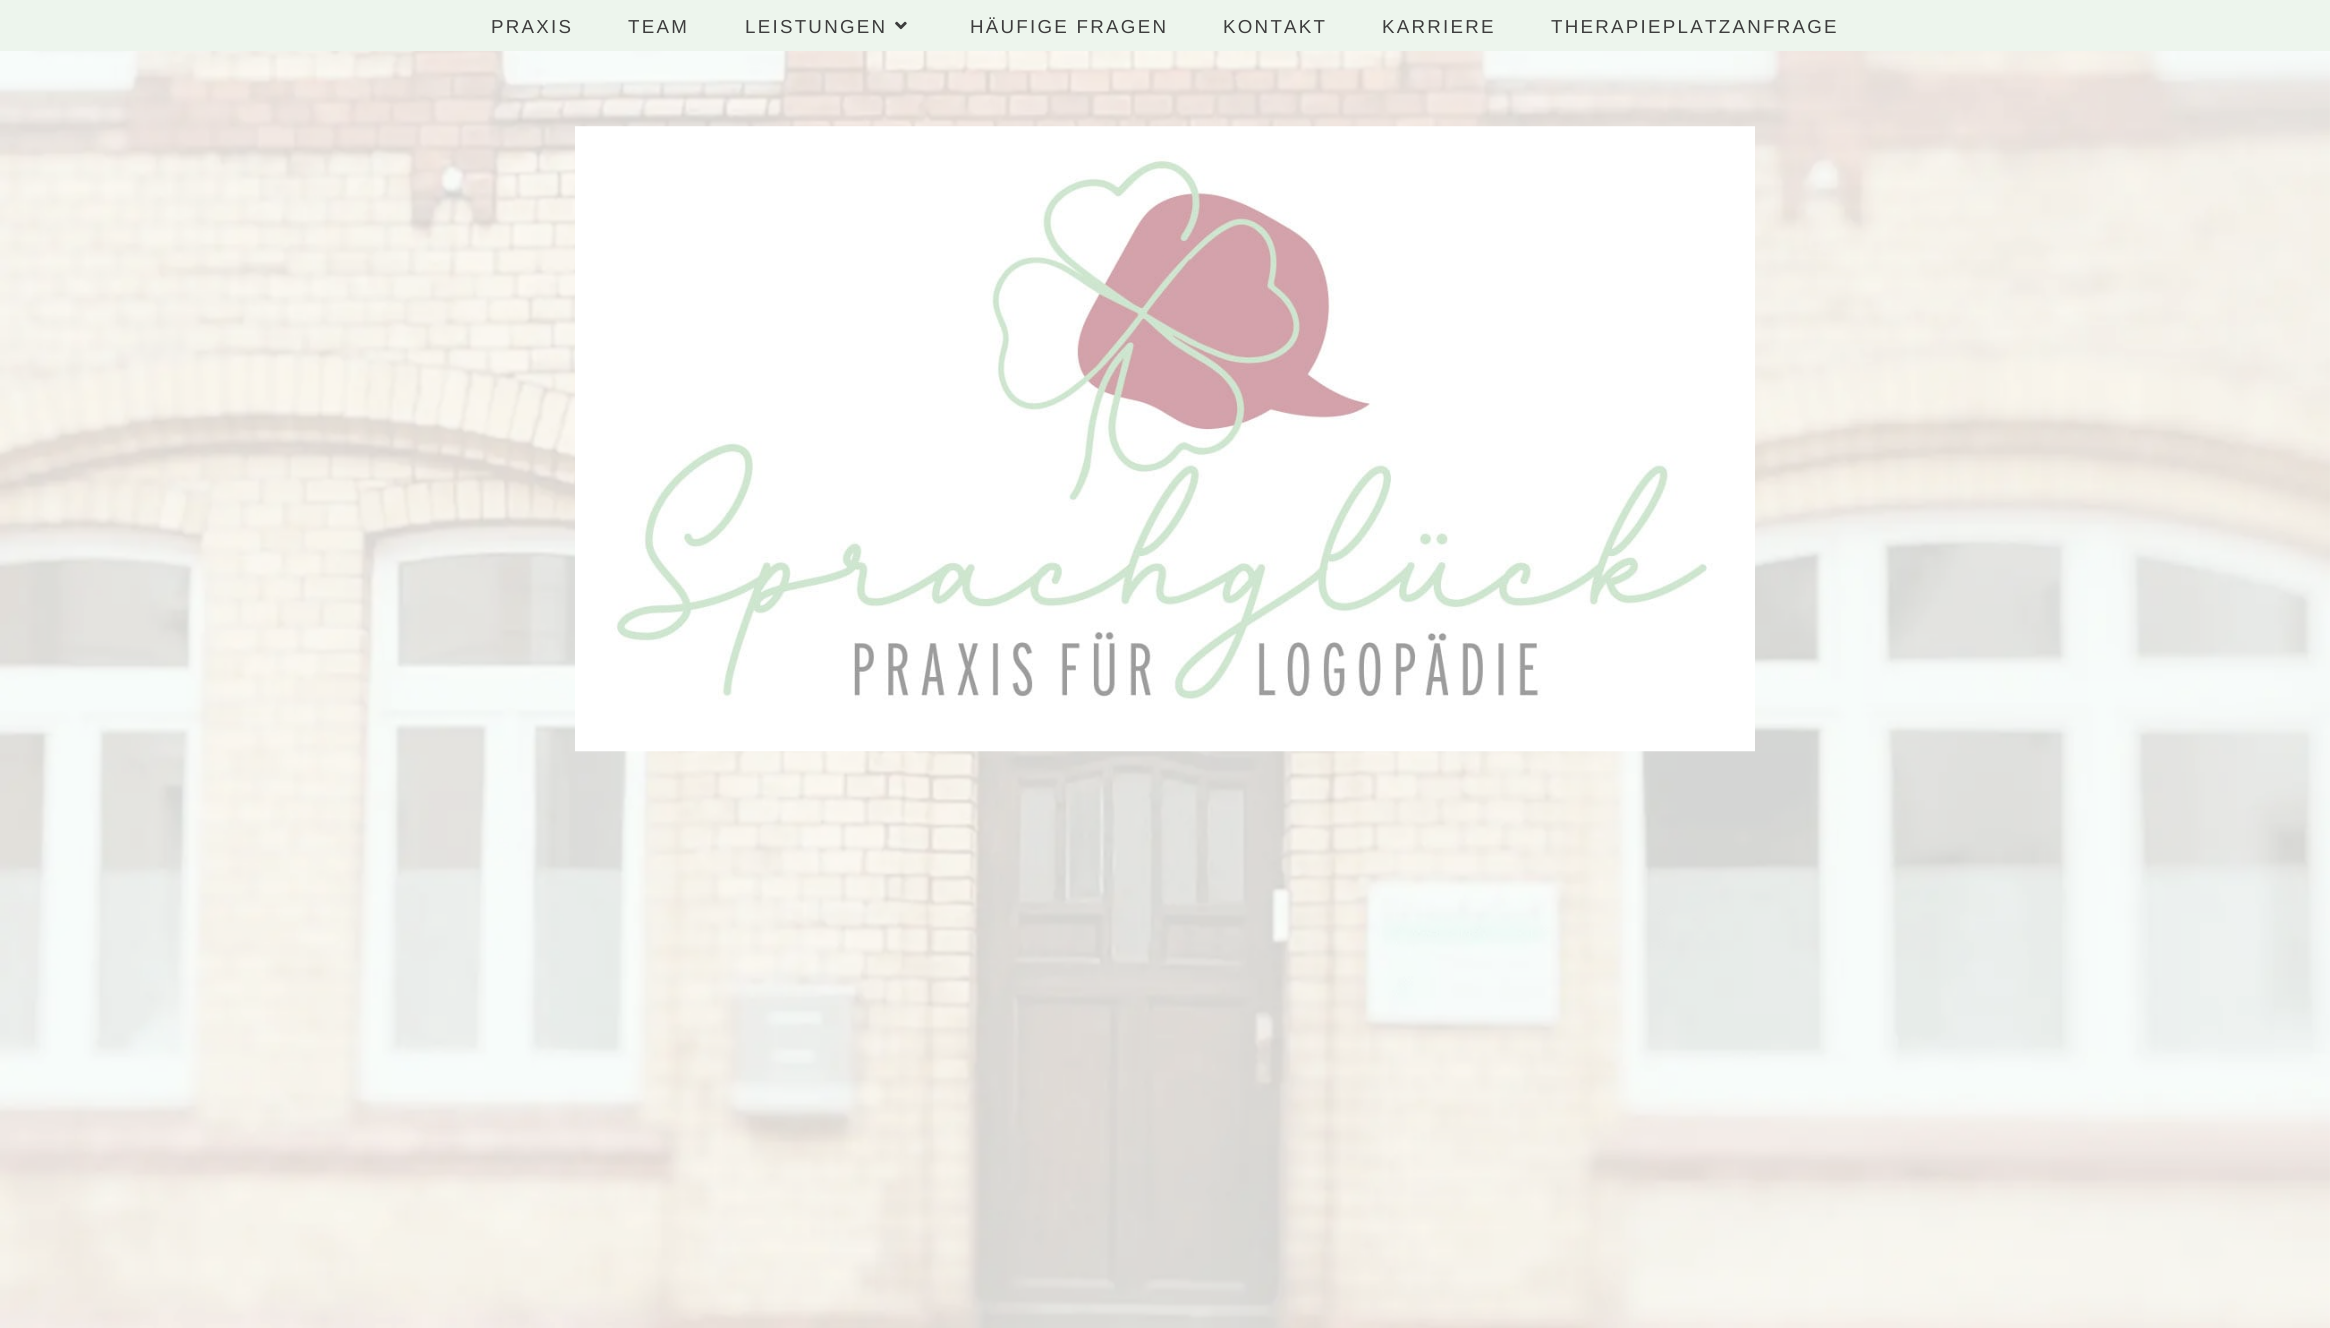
#include <cairo.h>
#include <math.h>
#include <stddef.h>

typedef struct { double x, y; const char *s; } line_t;

static void ink(cairo_t *ctx, unsigned color) {
    cairo_set_source_rgb(ctx, (color >> 16) / 255.0, (color >> 8 & 255) / 255.0, (color & 255) / 255.0);
}

static void write_spaced(cairo_t *ctx, double x, double y, const char *s, double letter, double word) {
    cairo_move_to(ctx, x, y);
    while (*s) {
        char ch[5] = {0};
        int n = 0;
        do ch[n++] = *s++; while ((*s & 0xC0) == 0x80);
        cairo_show_text(ctx, ch);
        cairo_rel_move_to(ctx, letter + word * (*ch == ' '), 0);
    }
}

static void paste(cairo_t *ctx, const char *path, double x, double y, double w, double h) {
    cairo_surface_t *image = cairo_image_surface_create_from_png(path);
    cairo_save(ctx);
    cairo_set_source_surface(ctx, image, x, y);
    cairo_rectangle(ctx, x, y, w, h);
    cairo_fill(ctx);
    cairo_restore(ctx);
    cairo_surface_destroy(image);
}

int main(void) {
    cairo_surface_t *surface = cairo_image_surface_create(CAIRO_FORMAT_RGB24, 2330, 1328);
    cairo_t *ctx = cairo_create(surface);
    cairo_font_options_t *options = cairo_font_options_create();
    cairo_font_options_set_hint_metrics(options, CAIRO_HINT_METRICS_OFF);
    cairo_font_options_set_hint_style(options, CAIRO_HINT_STYLE_NONE);
    cairo_set_font_options(ctx, options);
    cairo_set_miter_limit(ctx, 4);
    ink(ctx, 0xFFFFFF);
    cairo_paint(ctx);
    ink(ctx, 0xEDF5ED);
    cairo_rectangle(ctx, 0, 0, 2330, 51);
    cairo_fill(ctx);
    cairo_select_font_face(ctx, "Liberation Sans", CAIRO_FONT_SLANT_NORMAL, CAIRO_FONT_WEIGHT_NORMAL);
    cairo_set_font_size(ctx, 18.75);
    ink(ctx, 0x3D3D3D);
    {
        static const line_t items[] = {
            {491, 33, "PRAXIS"},
            {628, 33, "TEAM"},
            {745, 33, "LEISTUNGEN"},
        };
        for (size_t i = 0; i < sizeof items / sizeof *items; i++) {
            write_spaced(ctx, items[i].x, items[i].y, items[i].s, 2.25, 0);
        }
    }
    paste(ctx, "media/1.png", 895, 21, 12, 9);
    {
        static const line_t items[] = {
            {970, 33, "HÄUFIGE FRAGEN"},
            {1223, 33, "KONTAKT"},
            {1382, 33, "KARRIERE"},
            {1551, 33, "THERAPIEPLATZANFRAGE"},
        };
        for (size_t i = 0; i < sizeof items / sizeof *items; i++) {
            write_spaced(ctx, items[i].x, items[i].y, items[i].s, 2.25, 0);
        }
    }
    paste(ctx, "media/2.png", 0, 51, 2330, 1277);
    paste(ctx, "media/3.png", 575, 126, 1180, 626);
    cairo_surface_write_to_png(surface, "image.png");
    cairo_font_options_destroy(options);
    cairo_destroy(ctx);
    cairo_surface_destroy(surface);
    return 0;
}
